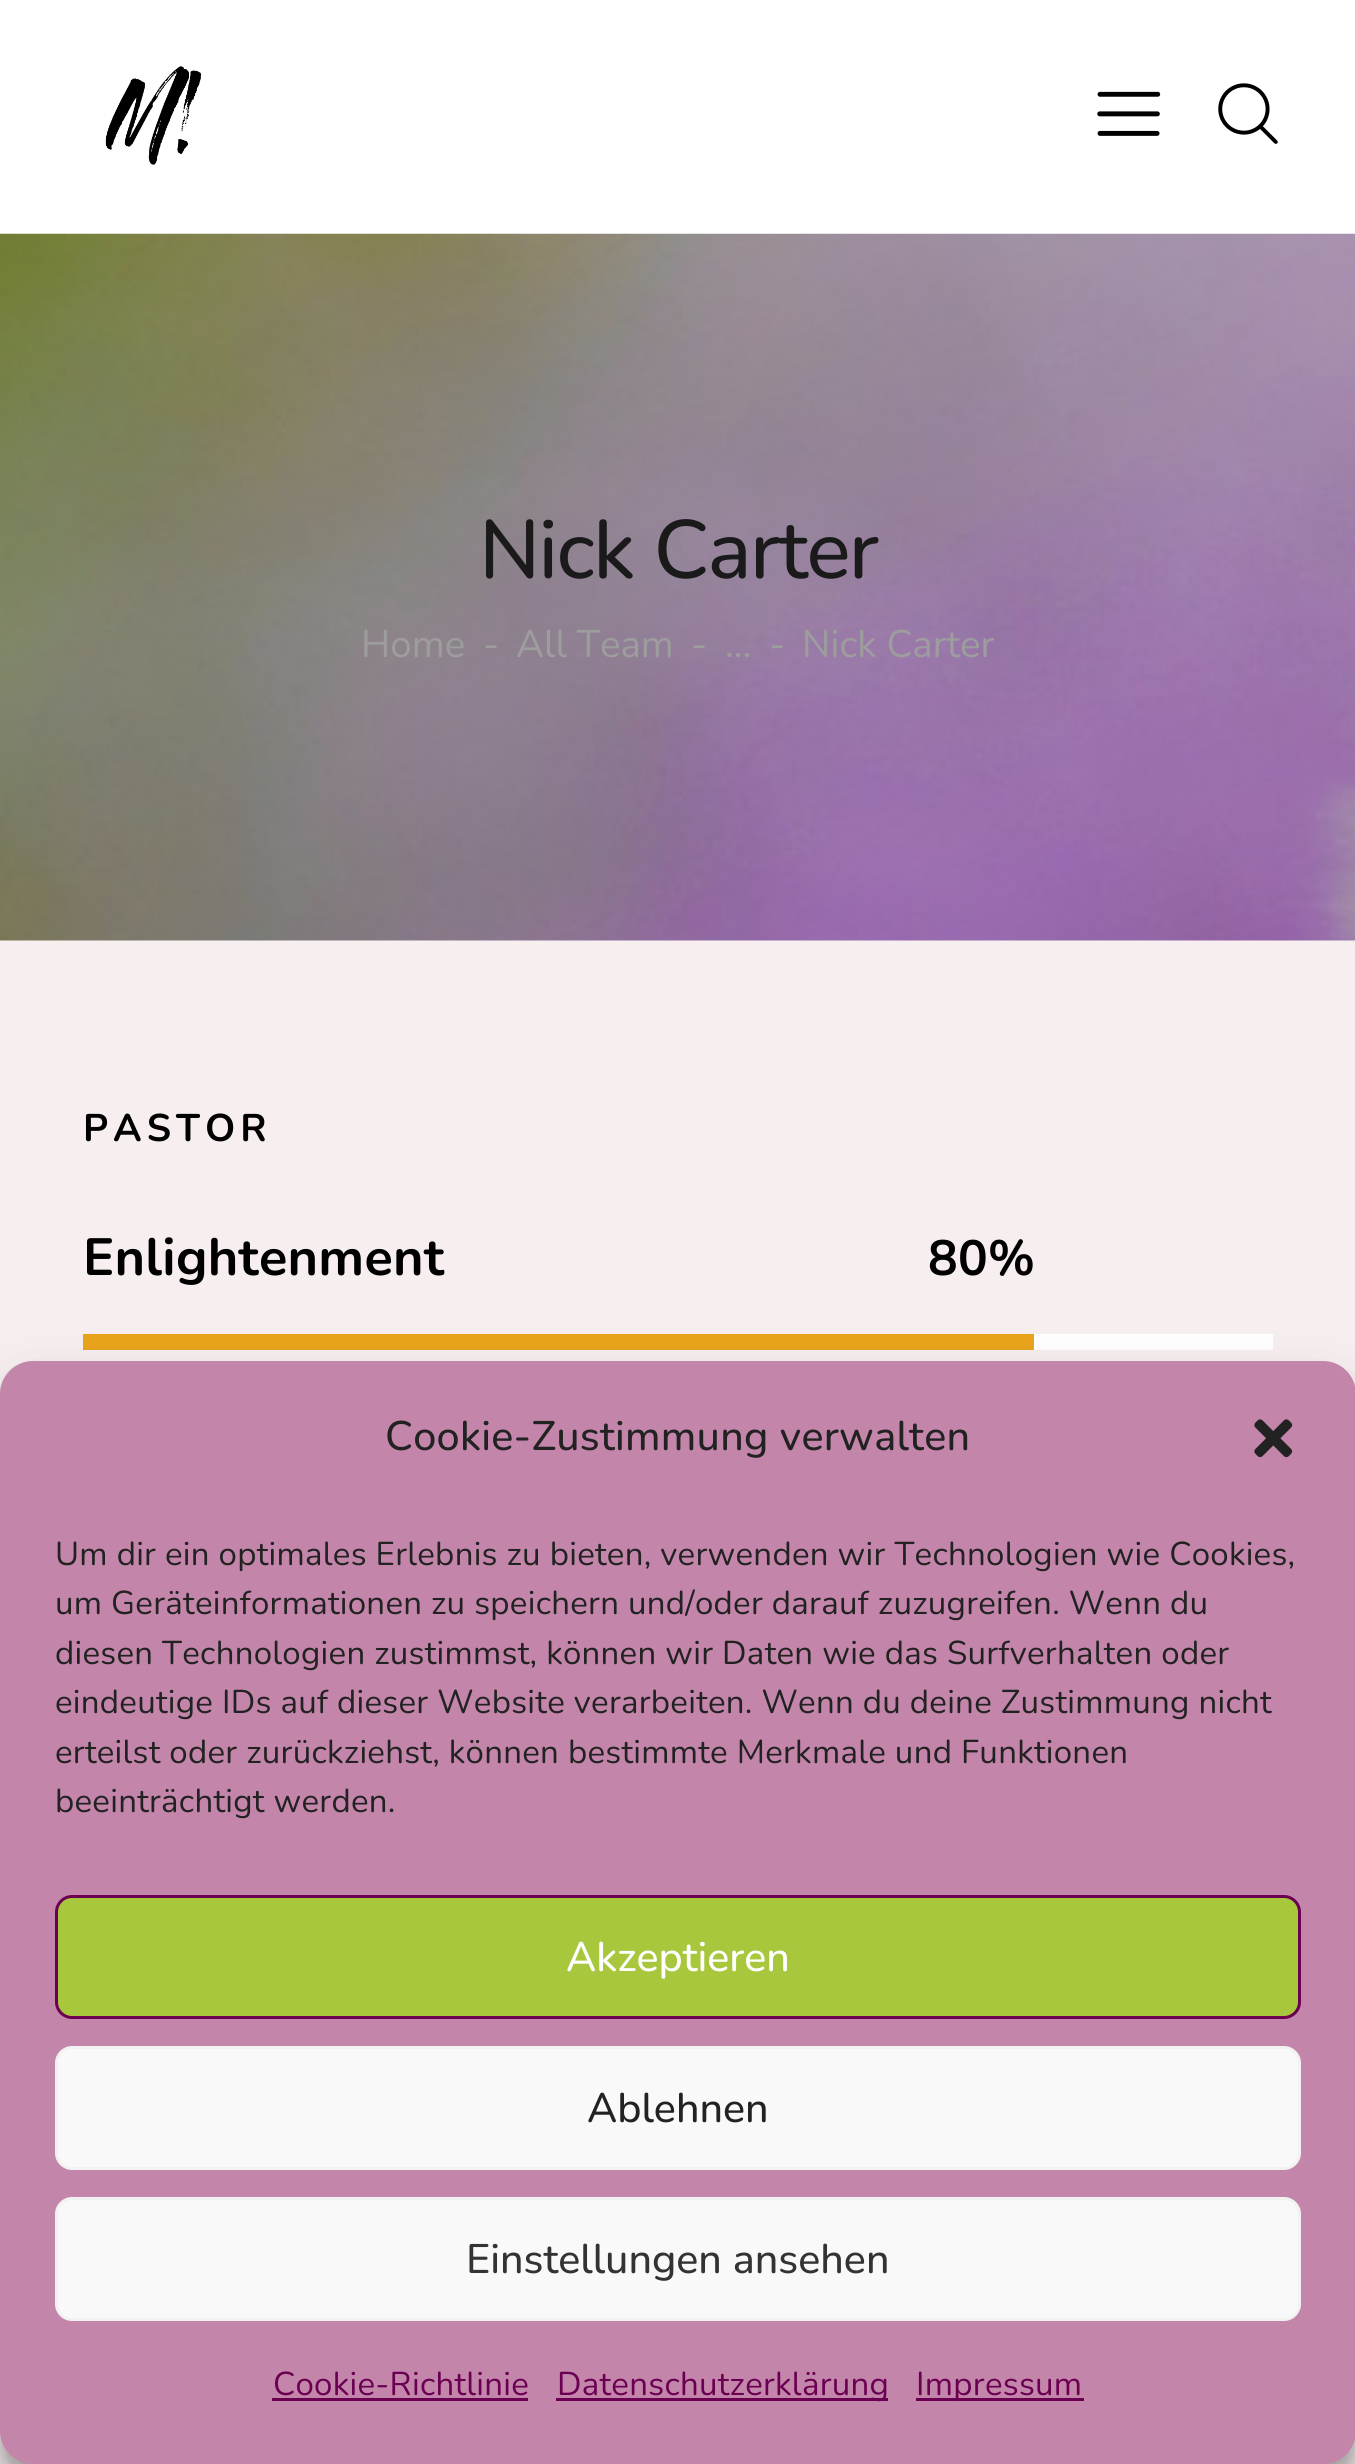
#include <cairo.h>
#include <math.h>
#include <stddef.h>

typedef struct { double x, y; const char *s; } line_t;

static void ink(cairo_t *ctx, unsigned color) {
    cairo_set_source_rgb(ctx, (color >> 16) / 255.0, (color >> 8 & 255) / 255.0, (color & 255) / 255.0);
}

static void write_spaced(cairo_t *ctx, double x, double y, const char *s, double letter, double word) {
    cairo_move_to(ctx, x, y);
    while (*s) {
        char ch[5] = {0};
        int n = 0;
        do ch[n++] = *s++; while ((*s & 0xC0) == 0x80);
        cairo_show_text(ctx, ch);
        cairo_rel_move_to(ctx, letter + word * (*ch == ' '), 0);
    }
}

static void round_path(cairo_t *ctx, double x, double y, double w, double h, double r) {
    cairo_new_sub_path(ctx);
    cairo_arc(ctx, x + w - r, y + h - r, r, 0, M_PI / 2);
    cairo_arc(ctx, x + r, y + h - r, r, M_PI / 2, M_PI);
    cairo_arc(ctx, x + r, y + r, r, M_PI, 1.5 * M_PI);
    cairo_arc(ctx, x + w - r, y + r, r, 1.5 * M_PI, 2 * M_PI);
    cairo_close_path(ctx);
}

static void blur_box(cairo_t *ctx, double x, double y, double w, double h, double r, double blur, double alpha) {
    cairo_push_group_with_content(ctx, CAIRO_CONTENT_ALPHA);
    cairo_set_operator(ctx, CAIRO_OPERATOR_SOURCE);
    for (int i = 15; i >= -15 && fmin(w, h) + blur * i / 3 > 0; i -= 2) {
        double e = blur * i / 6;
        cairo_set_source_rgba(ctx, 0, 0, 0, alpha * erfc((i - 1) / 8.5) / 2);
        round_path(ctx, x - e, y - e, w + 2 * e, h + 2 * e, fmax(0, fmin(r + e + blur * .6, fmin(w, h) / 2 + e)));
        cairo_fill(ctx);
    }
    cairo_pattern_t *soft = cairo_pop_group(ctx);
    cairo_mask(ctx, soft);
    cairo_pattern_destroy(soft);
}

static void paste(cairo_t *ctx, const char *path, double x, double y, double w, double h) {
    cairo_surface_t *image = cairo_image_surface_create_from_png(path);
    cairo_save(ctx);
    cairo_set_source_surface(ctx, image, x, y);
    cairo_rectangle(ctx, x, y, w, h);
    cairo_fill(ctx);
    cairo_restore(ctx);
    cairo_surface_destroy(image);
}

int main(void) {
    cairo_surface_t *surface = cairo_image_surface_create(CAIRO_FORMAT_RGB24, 1355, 2464);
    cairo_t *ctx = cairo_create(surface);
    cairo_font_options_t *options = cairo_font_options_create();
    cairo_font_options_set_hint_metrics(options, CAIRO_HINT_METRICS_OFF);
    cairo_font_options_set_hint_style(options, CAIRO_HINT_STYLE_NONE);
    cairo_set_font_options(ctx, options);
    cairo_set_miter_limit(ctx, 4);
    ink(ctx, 0xF7EFEF);
    cairo_paint(ctx);
    ink(ctx, 0xF6F6F6);
    cairo_rectangle(ctx, 0, 940, 1355, 1);
    cairo_fill(ctx);
    ink(ctx, 0xFFFFFF);
    cairo_rectangle(ctx, 0, 0, 1355, 234);
    cairo_fill(ctx);
    paste(ctx, "media/1.png", 105, 66, 97, 99);
    paste(ctx, "media/2.png", 1097, 91, 64, 45);
    paste(ctx, "media/3.png", 1218, 83, 60, 61);
    paste(ctx, "media/4.png", 0, 233, 1355, 708);
    cairo_select_font_face(ctx, "Nunito Medium", CAIRO_FONT_SLANT_NORMAL, CAIRO_FONT_WEIGHT_NORMAL);
    cairo_set_font_size(ctx, 82.5);
    ink(ctx, 0x1A1A1A);
    write_spaced(ctx, 479, 578, "Nick Carter", -1.6, 0);
    cairo_select_font_face(ctx, "Nunito", CAIRO_FONT_SLANT_NORMAL, CAIRO_FONT_WEIGHT_NORMAL);
    cairo_set_font_size(ctx, 38.5);
    ink(ctx, 0x9D9D9D);
    {
        static const line_t items[] = {
            {361, 657, "Home"},
            {483, 657, "-"},
            {516, 657, "All Team"},
            {691, 657, "-"},
            {769, 657, "-"},
            {802, 657, "Nick Carter"},
            {725, 657, "..."},
        };
        for (size_t i = 0; i < sizeof items / sizeof *items; i++) {
            cairo_move_to(ctx, items[i].x, items[i].y);
            cairo_show_text(ctx, items[i].s);
        }
    }
    cairo_select_font_face(ctx, "Nunito", CAIRO_FONT_SLANT_NORMAL, CAIRO_FONT_WEIGHT_BOLD);
    ink(ctx, 0x000000);
    write_spaced(ctx, 83, 1141, "PASTOR", 5, 0);
    cairo_set_font_size(ctx, 52.25);
    write_spaced(ctx, 83, 1275, "Enlightenment", 0.28, 0);
    ink(ctx, 0xFFFFFF);
    cairo_rectangle(ctx, 1034, 1334, 239, 16);
    cairo_fill(ctx);
    ink(ctx, 0xE9A41B);
    cairo_rectangle(ctx, 83, 1334, 951, 16);
    cairo_fill(ctx);
    cairo_set_font_size(ctx, 49.5);
    ink(ctx, 0x000000);
    write_spaced(ctx, 928, 1275, "80%", 0.28, 0);
    ink(ctx, 0x000000);
    blur_box(ctx, 0, 1378, 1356, 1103, 33, 8, 0.23);
    blur_box(ctx, 0, 1389, 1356, 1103, 33, 27.5, 0.19);
    ink(ctx, 0xC485AA);
    round_path(ctx, 0, 1361, 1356, 1103, 33);
    cairo_fill(ctx);
    cairo_select_font_face(ctx, "Nunito Medium", CAIRO_FONT_SLANT_NORMAL, CAIRO_FONT_WEIGHT_NORMAL);
    cairo_set_font_size(ctx, 41.25);
    ink(ctx, 0x222222);
    write_spaced(ctx, 385, 1450, "Cookie-Zustimmung verwalten", 0.28, 0);
    paste(ctx, "media/5.png", 1254, 1419, 39, 39);
    cairo_select_font_face(ctx, "Nunito", CAIRO_FONT_SLANT_NORMAL, CAIRO_FONT_WEIGHT_NORMAL);
    cairo_set_font_size(ctx, 33);
    {
        static const line_t items[] = {
            {55, 1565, "Um dir ein optimales Erlebnis zu bieten, verwenden wir Technologien wie Cookies,"},
            {55, 1614, "um Geräteinformationen zu speichern und/oder darauf zuzugreifen. Wenn du"},
            {55, 1664, "diesen Technologien zustimmst, können wir Daten wie das Surfverhalten oder"},
            {55, 1713, "eindeutige IDs auf dieser Website verarbeiten. Wenn du deine Zustimmung nicht"},
            {55, 1763, "erteilst oder zurückziehst, können bestimmte Merkmale und Funktionen"},
            {55, 1812, "beeinträchtigt werden."},
        };
        for (size_t i = 0; i < sizeof items / sizeof *items; i++) {
            write_spaced(ctx, items[i].x, items[i].y, items[i].s, 0.28, 0);
        }
    }
    ink(ctx, 0xA8C73C);
    round_path(ctx, 56.5, 1896.5, 1243, 121, 15.5);
    cairo_fill_preserve(ctx);
    ink(ctx, 0x6B0052);
    cairo_set_line_width(ctx, 3);
    cairo_stroke(ctx);
    cairo_select_font_face(ctx, "Nunito Medium", CAIRO_FONT_SLANT_NORMAL, CAIRO_FONT_WEIGHT_NORMAL);
    cairo_set_font_size(ctx, 41.25);
    ink(ctx, 0xFFFFFF);
    cairo_move_to(ctx, 566, 1971);
    cairo_show_text(ctx, "Akzeptieren");
    ink(ctx, 0xF9F9F9);
    round_path(ctx, 56.5, 2047.5, 1243, 121, 15.5);
    cairo_fill_preserve(ctx);
    ink(ctx, 0xF2F2F2);
    cairo_stroke(ctx);
    ink(ctx, 0x222222);
    cairo_move_to(ctx, 587, 2122);
    cairo_show_text(ctx, "Ablehnen");
    ink(ctx, 0xF9F9F9);
    round_path(ctx, 56.5, 2198.5, 1243, 121, 15.5);
    cairo_fill_preserve(ctx);
    ink(ctx, 0xF2F2F2);
    cairo_stroke(ctx);
    ink(ctx, 0x333333);
    cairo_move_to(ctx, 466, 2273);
    cairo_show_text(ctx, "Einstellungen ansehen");
    cairo_select_font_face(ctx, "Nunito", CAIRO_FONT_SLANT_NORMAL, CAIRO_FONT_WEIGHT_NORMAL);
    cairo_set_font_size(ctx, 33);
    ink(ctx, 0x6B0052);
    write_spaced(ctx, 273, 2395, "Cookie-Richtlinie", 0.28, 0);
    cairo_rectangle(ctx, 272, 2398, 256, 3);
    cairo_fill(ctx);
    cairo_rectangle(ctx, 556, 2398, 332, 3);
    cairo_fill(ctx);
    write_spaced(ctx, 557, 2395, "Datenschutzerklärung", 0.28, 0);
    cairo_rectangle(ctx, 916, 2398, 168, 3);
    cairo_fill(ctx);
    write_spaced(ctx, 916, 2395, "Impressum", 0.28, 0);
    cairo_surface_write_to_png(surface, "image.png");
    cairo_font_options_destroy(options);
    cairo_destroy(ctx);
    cairo_surface_destroy(surface);
    return 0;
}
